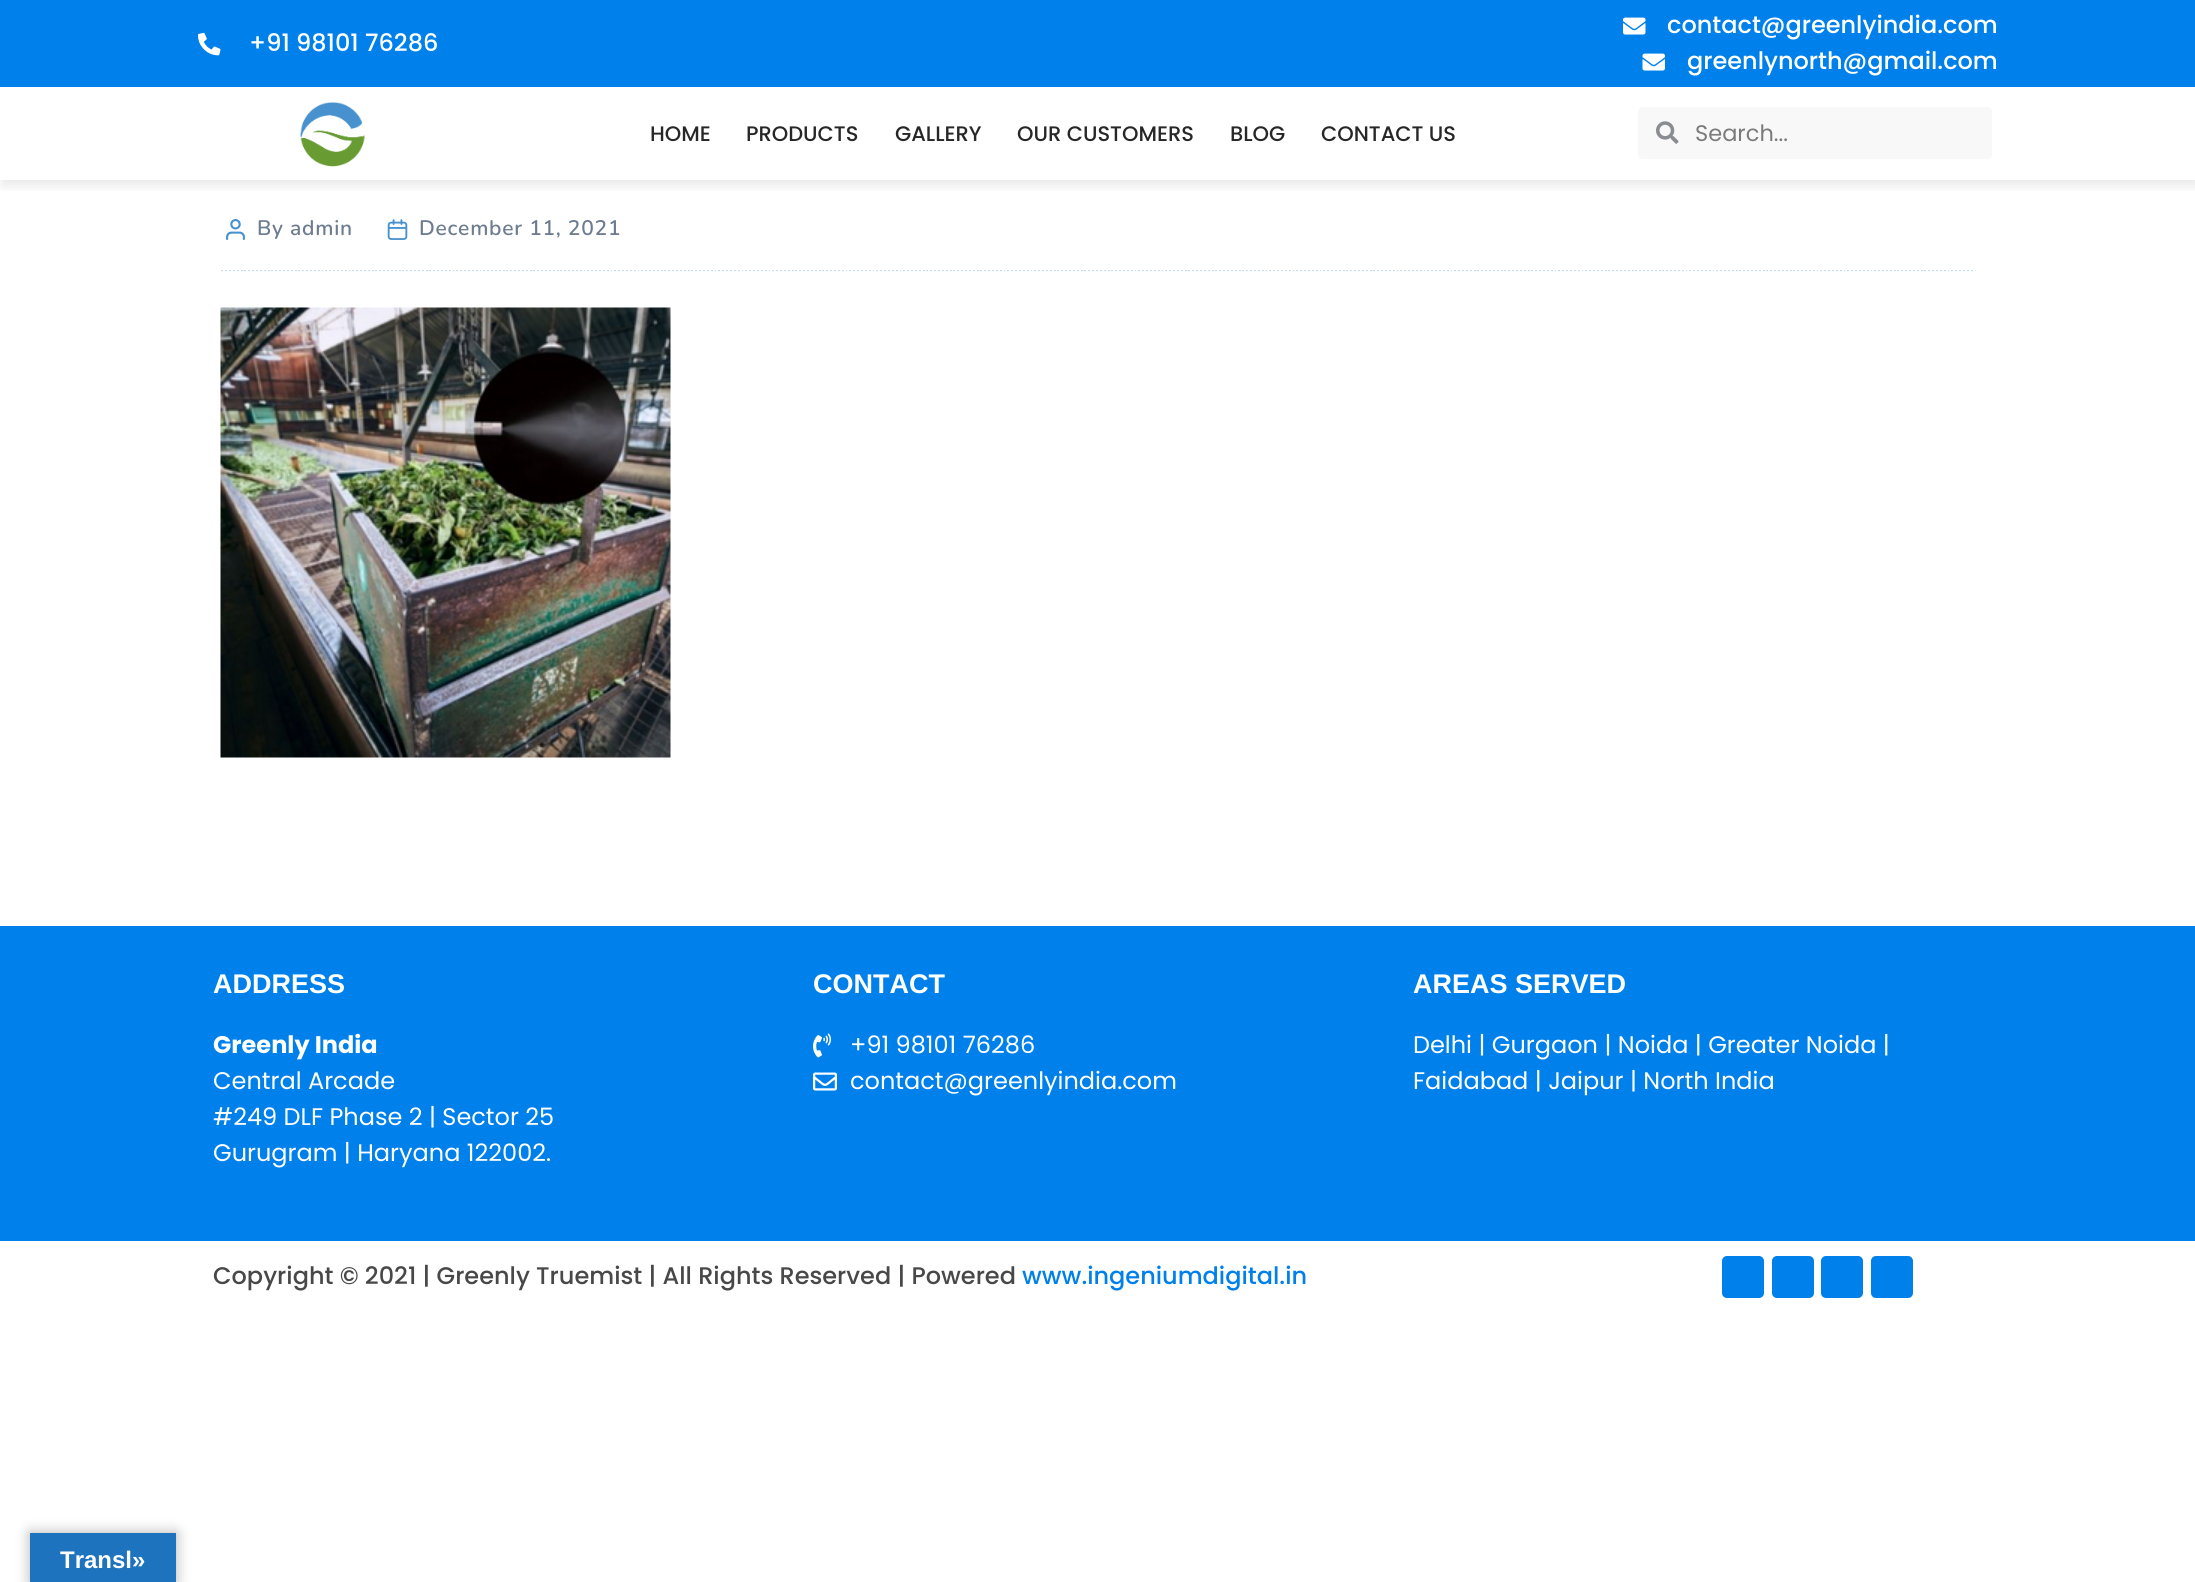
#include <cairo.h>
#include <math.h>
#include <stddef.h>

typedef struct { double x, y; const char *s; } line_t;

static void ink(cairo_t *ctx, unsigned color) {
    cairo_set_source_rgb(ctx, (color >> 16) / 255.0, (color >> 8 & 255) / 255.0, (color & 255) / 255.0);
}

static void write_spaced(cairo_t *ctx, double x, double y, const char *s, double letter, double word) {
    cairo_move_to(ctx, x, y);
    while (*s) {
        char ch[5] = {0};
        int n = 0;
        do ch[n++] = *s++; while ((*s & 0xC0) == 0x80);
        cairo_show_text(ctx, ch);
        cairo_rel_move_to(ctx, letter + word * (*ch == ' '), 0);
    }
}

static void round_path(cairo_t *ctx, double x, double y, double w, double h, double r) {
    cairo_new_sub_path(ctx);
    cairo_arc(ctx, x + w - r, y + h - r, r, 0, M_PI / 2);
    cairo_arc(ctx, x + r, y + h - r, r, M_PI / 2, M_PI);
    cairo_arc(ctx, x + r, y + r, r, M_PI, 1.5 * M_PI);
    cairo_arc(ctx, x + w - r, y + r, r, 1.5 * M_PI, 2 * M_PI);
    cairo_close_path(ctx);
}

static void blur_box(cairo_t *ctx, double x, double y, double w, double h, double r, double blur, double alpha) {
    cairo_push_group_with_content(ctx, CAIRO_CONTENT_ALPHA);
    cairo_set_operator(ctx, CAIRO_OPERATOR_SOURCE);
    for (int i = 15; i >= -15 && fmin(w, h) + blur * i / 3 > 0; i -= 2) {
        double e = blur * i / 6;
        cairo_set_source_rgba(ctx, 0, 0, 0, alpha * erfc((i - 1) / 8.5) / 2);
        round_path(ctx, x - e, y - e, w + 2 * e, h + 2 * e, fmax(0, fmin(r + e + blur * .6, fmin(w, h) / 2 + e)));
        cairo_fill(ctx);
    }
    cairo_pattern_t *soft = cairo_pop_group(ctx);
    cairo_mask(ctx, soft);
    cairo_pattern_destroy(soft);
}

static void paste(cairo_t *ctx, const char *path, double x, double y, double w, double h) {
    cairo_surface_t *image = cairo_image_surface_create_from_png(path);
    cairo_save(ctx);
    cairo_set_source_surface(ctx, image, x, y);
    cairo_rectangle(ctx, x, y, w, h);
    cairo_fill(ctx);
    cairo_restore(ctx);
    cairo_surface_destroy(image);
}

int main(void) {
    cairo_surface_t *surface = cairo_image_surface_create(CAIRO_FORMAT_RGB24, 2195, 1582);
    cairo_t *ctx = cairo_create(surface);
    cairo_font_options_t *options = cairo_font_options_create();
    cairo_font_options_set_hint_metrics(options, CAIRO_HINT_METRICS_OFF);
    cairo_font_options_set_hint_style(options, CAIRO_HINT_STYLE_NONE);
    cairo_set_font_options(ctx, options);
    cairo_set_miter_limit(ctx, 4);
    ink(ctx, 0xFFFFFF);
    cairo_paint(ctx);
    ink(ctx, 0x0080EA);
    cairo_rectangle(ctx, 0, 0, 2195, 87);
    cairo_fill(ctx);
    paste(ctx, "media/1.png", 198, 32, 23, 24);
    cairo_select_font_face(ctx, "Poppins Medium", CAIRO_FONT_SLANT_NORMAL, CAIRO_FONT_WEIGHT_NORMAL);
    cairo_set_font_size(ctx, 24);
    ink(ctx, 0xFFFFFF);
    cairo_move_to(ctx, 249, 51);
    cairo_show_text(ctx, "+91 98101 76286");
    paste(ctx, "media/2.png", 1623, 17, 23, 18);
    cairo_move_to(ctx, 1667, 33);
    cairo_show_text(ctx, "contact@greenlyindia.com");
    paste(ctx, "media/3.png", 1642, 53, 23, 18);
    cairo_move_to(ctx, 1687, 69);
    cairo_show_text(ctx, "greenlynorth@gmail.com");
    cairo_save(ctx);
    cairo_rectangle(ctx, 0, 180, 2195, 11);
    cairo_clip(ctx);
    ink(ctx, 0x000000);
    blur_box(ctx, 2, 93, 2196, 93, 0, 6, 0.09);
    cairo_restore(ctx);
    paste(ctx, "media/4.png", 300, 102, 65, 65);
    cairo_set_font_size(ctx, 21);
    ink(ctx, 0x272727);
    {
        static const line_t items[] = {
            {650, 141, "HOME"},
            {746, 141, "PRODUCTS"},
            {895, 141, "GALLERY"},
            {1017, 141, "OUR CUSTOMERS"},
            {1230, 141, "BLOG"},
            {1321, 141, "CONTACT US"},
        };
        for (size_t i = 0; i < sizeof items / sizeof *items; i++) {
            cairo_move_to(ctx, items[i].x, items[i].y);
            cairo_show_text(ctx, items[i].s);
        }
    }
    ink(ctx, 0xF8F8F8);
    round_path(ctx, 1638, 107, 354, 52, 5);
    cairo_fill(ctx);
    paste(ctx, "media/5.png", 1656, 121, 23, 23);
    cairo_select_font_face(ctx, "Poppins", CAIRO_FONT_SLANT_NORMAL, CAIRO_FONT_WEIGHT_NORMAL);
    cairo_set_font_size(ctx, 22.5);
    ink(ctx, 0x7B7B7B);
    cairo_move_to(ctx, 1695, 141);
    cairo_show_text(ctx, "Search...");
    paste(ctx, "media/6.png", 226, 219, 19, 21);
    cairo_select_font_face(ctx, "Nunito SemiBold", CAIRO_FONT_SLANT_NORMAL, CAIRO_FONT_WEIGHT_NORMAL);
    cairo_set_font_size(ctx, 21);
    ink(ctx, 0x6D7C90);
    write_spaced(ctx, 257, 235, "By admin", 0.75, 0);
    paste(ctx, "media/7.png", 387, 219, 21, 21);
    write_spaced(ctx, 419, 235, "December 11, 2021", 0.75, 0);
    paste(ctx, "media/8.png", 221, 270, 1755, 2);
    paste(ctx, "media/9.png", 220, 307, 451, 451);
    ink(ctx, 0x0080EA);
    cairo_rectangle(ctx, 0, 926, 2195, 315);
    cairo_fill(ctx);
    cairo_select_font_face(ctx, "Liberation Sans", CAIRO_FONT_SLANT_NORMAL, CAIRO_FONT_WEIGHT_BOLD);
    cairo_set_font_size(ctx, 27);
    ink(ctx, 0xFFFFFF);
    cairo_move_to(ctx, 213, 993);
    cairo_show_text(ctx, "ADDRESS");
    cairo_select_font_face(ctx, "Poppins", CAIRO_FONT_SLANT_NORMAL, CAIRO_FONT_WEIGHT_BOLD);
    cairo_set_font_size(ctx, 24);
    cairo_move_to(ctx, 213, 1053);
    cairo_show_text(ctx, "Greenly India");
    cairo_select_font_face(ctx, "Poppins", CAIRO_FONT_SLANT_NORMAL, CAIRO_FONT_WEIGHT_NORMAL);
    {
        static const line_t items[] = {
            {213, 1089, "Central Arcade"},
            {213, 1125, "#249 DLF Phase 2 | Sector 25"},
            {213, 1161, "Gurugram | Haryana 122002."},
        };
        for (size_t i = 0; i < sizeof items / sizeof *items; i++) {
            cairo_move_to(ctx, items[i].x, items[i].y);
            cairo_show_text(ctx, items[i].s);
        }
    }
    cairo_select_font_face(ctx, "Liberation Sans", CAIRO_FONT_SLANT_NORMAL, CAIRO_FONT_WEIGHT_BOLD);
    cairo_set_font_size(ctx, 27);
    cairo_move_to(ctx, 813, 993);
    cairo_show_text(ctx, "CONTACT");
    paste(ctx, "media/10.png", 813, 1033, 19, 25);
    cairo_select_font_face(ctx, "Poppins", CAIRO_FONT_SLANT_NORMAL, CAIRO_FONT_WEIGHT_NORMAL);
    cairo_set_font_size(ctx, 24);
    cairo_move_to(ctx, 850, 1053);
    cairo_show_text(ctx, "+91 98101 76286");
    paste(ctx, "media/11.png", 813, 1072, 24, 19);
    cairo_move_to(ctx, 850, 1089);
    cairo_show_text(ctx, "contact@greenlyindia.com");
    cairo_select_font_face(ctx, "Liberation Sans", CAIRO_FONT_SLANT_NORMAL, CAIRO_FONT_WEIGHT_BOLD);
    cairo_set_font_size(ctx, 27);
    cairo_move_to(ctx, 1413, 993);
    cairo_show_text(ctx, "AREAS SERVED");
    cairo_select_font_face(ctx, "Poppins", CAIRO_FONT_SLANT_NORMAL, CAIRO_FONT_WEIGHT_NORMAL);
    cairo_set_font_size(ctx, 24);
    cairo_move_to(ctx, 1413, 1053);
    cairo_show_text(ctx, "Delhi | Gurgaon | Noida | Greater Noida |");
    cairo_move_to(ctx, 1413, 1089);
    cairo_show_text(ctx, "Faidabad | Jaipur | North India");
    cairo_select_font_face(ctx, "Poppins Medium", CAIRO_FONT_SLANT_NORMAL, CAIRO_FONT_WEIGHT_NORMAL);
    ink(ctx, 0x484848);
    cairo_move_to(ctx, 213, 1284);
    cairo_show_text(ctx, "Copyright © 2021 | Greenly Truemist | All Rights Reserved | Powered");
    ink(ctx, 0x0080EA);
    cairo_move_to(ctx, 1022, 1284);
    cairo_show_text(ctx, "www.ingeniumdigital.in");
    round_path(ctx, 1722, 1256, 42, 42, 5);
    cairo_fill(ctx);
    round_path(ctx, 1772, 1256, 42, 42, 5);
    cairo_fill(ctx);
    round_path(ctx, 1821, 1256, 42, 42, 5);
    cairo_fill(ctx);
    round_path(ctx, 1871, 1256, 42, 42, 5);
    cairo_fill(ctx);
    ink(ctx, 0x000000);
    blur_box(ctx, 30, 1533, 146, 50, 0, 7, 0.3);
    ink(ctx, 0x1E73BE);
    cairo_rectangle(ctx, 30, 1533, 146, 49);
    cairo_fill(ctx);
    cairo_select_font_face(ctx, "Liberation Sans", CAIRO_FONT_SLANT_NORMAL, CAIRO_FONT_WEIGHT_BOLD);
    ink(ctx, 0xFFFFFF);
    cairo_move_to(ctx, 60, 1568);
    cairo_show_text(ctx, "Transl»");
    cairo_surface_write_to_png(surface, "image.png");
    cairo_font_options_destroy(options);
    cairo_destroy(ctx);
    cairo_surface_destroy(surface);
    return 0;
}
